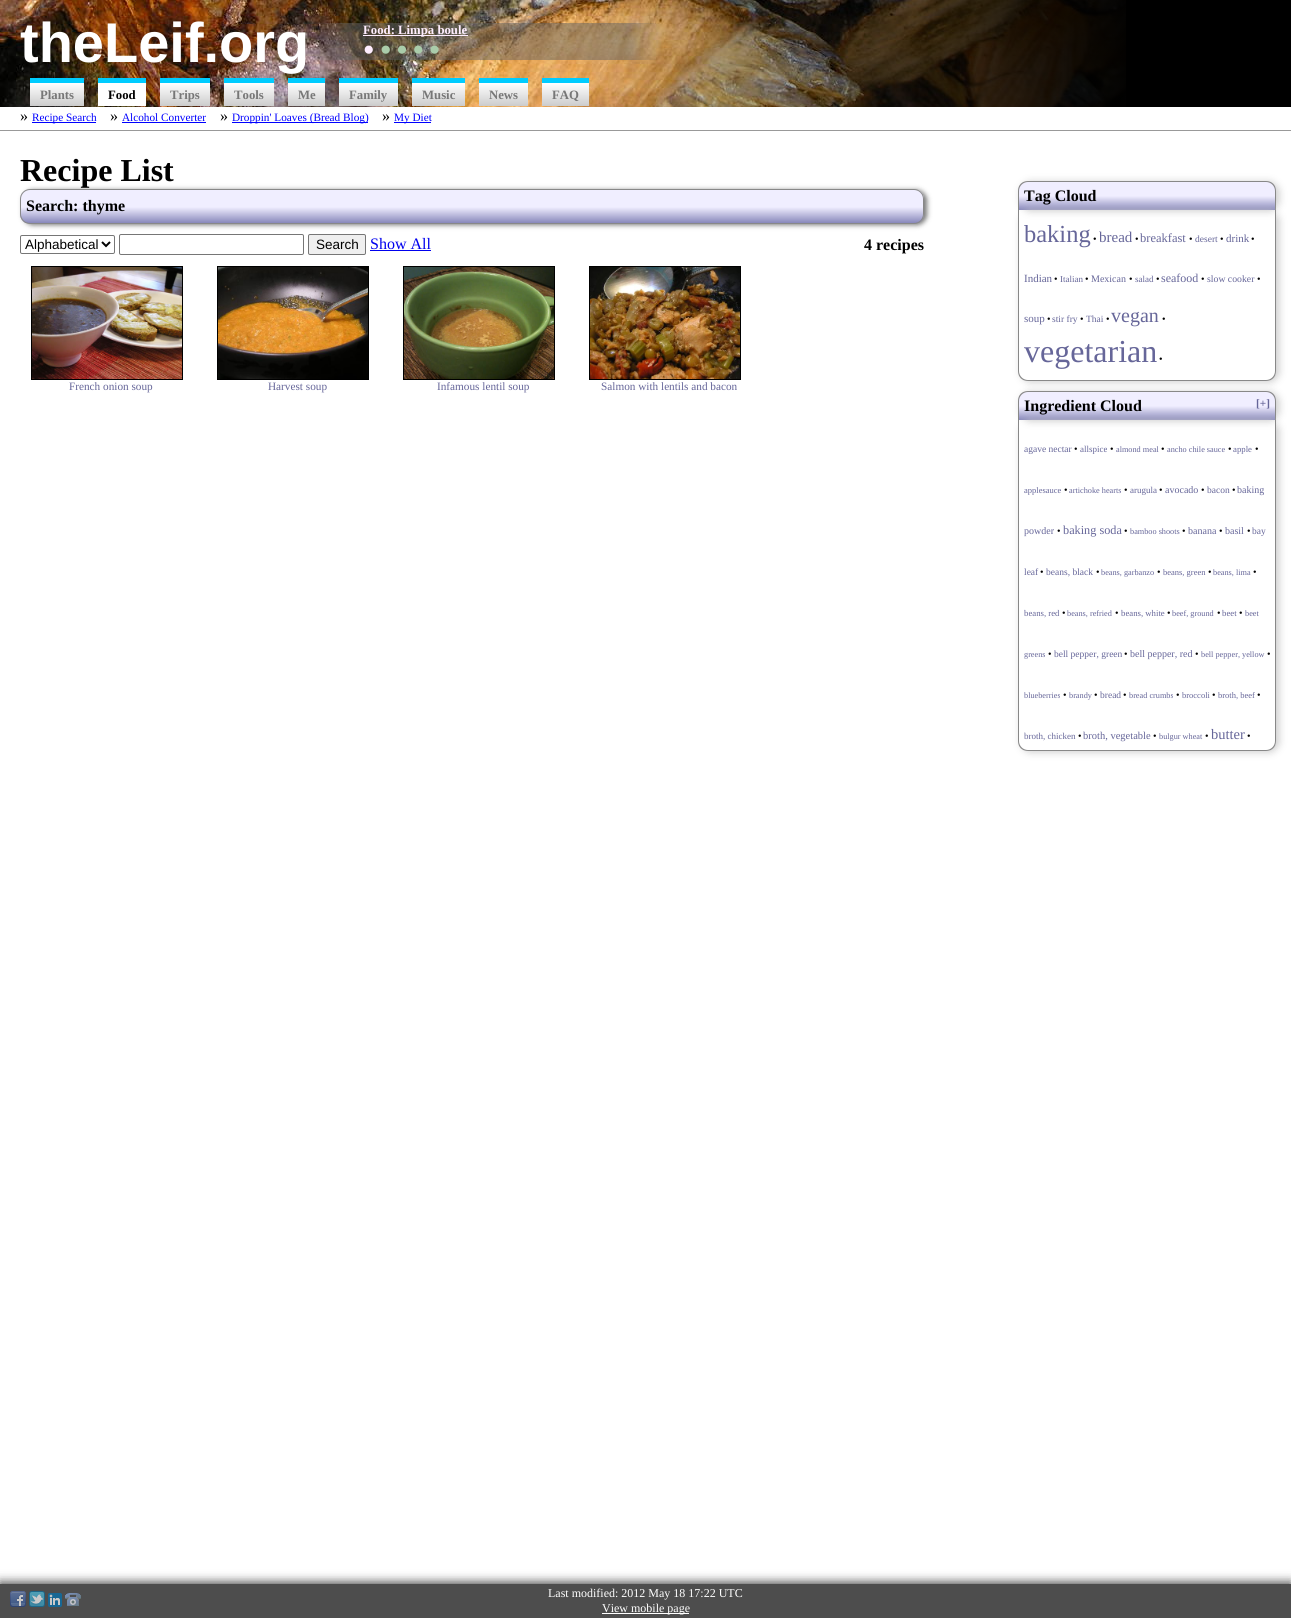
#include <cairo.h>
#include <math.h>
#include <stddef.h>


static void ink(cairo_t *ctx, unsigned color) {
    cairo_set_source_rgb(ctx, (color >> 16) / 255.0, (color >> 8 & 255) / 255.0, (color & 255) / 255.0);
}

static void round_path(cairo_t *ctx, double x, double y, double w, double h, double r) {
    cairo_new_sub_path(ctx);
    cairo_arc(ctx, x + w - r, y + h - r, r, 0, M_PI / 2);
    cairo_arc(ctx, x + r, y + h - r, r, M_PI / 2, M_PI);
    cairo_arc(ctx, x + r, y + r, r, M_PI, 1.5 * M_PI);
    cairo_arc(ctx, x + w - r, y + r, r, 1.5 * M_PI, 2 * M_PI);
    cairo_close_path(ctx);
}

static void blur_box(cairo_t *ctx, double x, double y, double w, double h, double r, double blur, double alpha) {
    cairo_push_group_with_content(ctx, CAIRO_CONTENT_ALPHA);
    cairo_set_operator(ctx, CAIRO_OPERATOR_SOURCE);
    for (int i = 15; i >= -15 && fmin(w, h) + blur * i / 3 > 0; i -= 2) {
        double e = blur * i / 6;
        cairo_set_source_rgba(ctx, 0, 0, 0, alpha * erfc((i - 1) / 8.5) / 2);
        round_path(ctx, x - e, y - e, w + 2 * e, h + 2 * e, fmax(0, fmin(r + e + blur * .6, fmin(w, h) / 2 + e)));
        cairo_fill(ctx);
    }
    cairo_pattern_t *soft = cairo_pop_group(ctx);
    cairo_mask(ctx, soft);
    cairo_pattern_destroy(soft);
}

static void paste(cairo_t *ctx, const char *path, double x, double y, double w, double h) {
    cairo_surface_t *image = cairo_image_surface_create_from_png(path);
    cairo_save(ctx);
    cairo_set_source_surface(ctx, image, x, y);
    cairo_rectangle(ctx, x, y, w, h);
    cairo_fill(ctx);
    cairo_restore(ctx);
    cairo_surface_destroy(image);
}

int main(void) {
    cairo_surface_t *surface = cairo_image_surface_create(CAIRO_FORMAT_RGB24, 1291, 1618);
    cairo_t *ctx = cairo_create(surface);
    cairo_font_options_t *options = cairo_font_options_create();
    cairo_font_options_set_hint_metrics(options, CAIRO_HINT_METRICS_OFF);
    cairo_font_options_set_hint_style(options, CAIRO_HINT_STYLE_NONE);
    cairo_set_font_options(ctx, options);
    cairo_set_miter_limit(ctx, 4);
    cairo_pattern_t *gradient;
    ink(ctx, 0xFFFFFF);
    cairo_paint(ctx);
    ink(ctx, 0x000000);
    cairo_rectangle(ctx, 1126, 0, 165, 107);
    cairo_fill(ctx);
    paste(ctx, "media/1.png", 0, 0, 1126, 107);
    cairo_select_font_face(ctx, "Liberation Sans", CAIRO_FONT_SLANT_NORMAL, CAIRO_FONT_WEIGHT_BOLD);
    cairo_set_font_size(ctx, 56);
    ink(ctx, 0xFFFFFF);
    cairo_move_to(ctx, 20, 62);
    cairo_show_text(ctx, "theLeif.org");
    ink(ctx, 0xFFEEFF);
    cairo_rectangle(ctx, 363, 35, 105, 1);
    cairo_fill(ctx);
    cairo_select_font_face(ctx, "Liberation Serif", CAIRO_FONT_SLANT_NORMAL, CAIRO_FONT_WEIGHT_BOLD);
    cairo_set_font_size(ctx, 12.75);
    cairo_move_to(ctx, 363, 34);
    cairo_show_text(ctx, "Food: Limpa boule");
    cairo_set_font_size(ctx, 19);
    cairo_move_to(ctx, 363, 55);
    cairo_show_text(ctx, "●");
    ink(ctx, 0xAACCAA);
    cairo_move_to(ctx, 380, 55);
    cairo_show_text(ctx, "● ● ● ●");
    gradient = cairo_pattern_create_linear(30, 83, 30, 106);
    cairo_pattern_add_color_stop_rgba(gradient, 0, 1, 1, 1, 1);
    cairo_pattern_add_color_stop_rgba(gradient, 1, 0.8, 0.8, 0.8, 1);
    cairo_set_source(ctx, gradient);
    cairo_pattern_destroy(gradient);
    cairo_rectangle(ctx, 30, 83, 54, 23);
    cairo_fill(ctx);
    cairo_set_font_size(ctx, 12.75);
    ink(ctx, 0x777777);
    cairo_move_to(ctx, 40, 99);
    cairo_show_text(ctx, "Plants");
    ink(ctx, 0x00CCFF);
    cairo_rectangle(ctx, 30, 78, 54, 5);
    cairo_fill(ctx);
    ink(ctx, 0xFFFFFF);
    cairo_rectangle(ctx, 98, 83, 48, 23);
    cairo_fill(ctx);
    ink(ctx, 0x000000);
    cairo_move_to(ctx, 108, 99);
    cairo_show_text(ctx, "Food");
    ink(ctx, 0x00CCFF);
    cairo_rectangle(ctx, 98, 78, 48, 5);
    cairo_fill(ctx);
    gradient = cairo_pattern_create_linear(160, 83, 160, 106);
    cairo_pattern_add_color_stop_rgba(gradient, 0, 1, 1, 1, 1);
    cairo_pattern_add_color_stop_rgba(gradient, 1, 0.8, 0.8, 0.8, 1);
    cairo_set_source(ctx, gradient);
    cairo_pattern_destroy(gradient);
    cairo_rectangle(ctx, 160, 83, 50, 23);
    cairo_fill(ctx);
    ink(ctx, 0x777777);
    cairo_move_to(ctx, 170, 99);
    cairo_show_text(ctx, "Trips");
    ink(ctx, 0x00CCFF);
    cairo_rectangle(ctx, 160, 78, 50, 5);
    cairo_fill(ctx);
    gradient = cairo_pattern_create_linear(224, 83, 224, 106);
    cairo_pattern_add_color_stop_rgba(gradient, 0, 1, 1, 1, 1);
    cairo_pattern_add_color_stop_rgba(gradient, 1, 0.8, 0.8, 0.8, 1);
    cairo_set_source(ctx, gradient);
    cairo_pattern_destroy(gradient);
    cairo_rectangle(ctx, 224, 83, 50, 23);
    cairo_fill(ctx);
    ink(ctx, 0x777777);
    cairo_move_to(ctx, 234, 99);
    cairo_show_text(ctx, "Tools");
    ink(ctx, 0x00CCFF);
    cairo_rectangle(ctx, 224, 78, 50, 5);
    cairo_fill(ctx);
    gradient = cairo_pattern_create_linear(288, 83, 288, 106);
    cairo_pattern_add_color_stop_rgba(gradient, 0, 1, 1, 1, 1);
    cairo_pattern_add_color_stop_rgba(gradient, 1, 0.8, 0.8, 0.8, 1);
    cairo_set_source(ctx, gradient);
    cairo_pattern_destroy(gradient);
    cairo_rectangle(ctx, 288, 83, 37, 23);
    cairo_fill(ctx);
    ink(ctx, 0x777777);
    cairo_move_to(ctx, 298, 99);
    cairo_show_text(ctx, "Me");
    ink(ctx, 0x00CCFF);
    cairo_rectangle(ctx, 288, 78, 37, 5);
    cairo_fill(ctx);
    gradient = cairo_pattern_create_linear(339, 83, 339, 106);
    cairo_pattern_add_color_stop_rgba(gradient, 0, 1, 1, 1, 1);
    cairo_pattern_add_color_stop_rgba(gradient, 1, 0.8, 0.8, 0.8, 1);
    cairo_set_source(ctx, gradient);
    cairo_pattern_destroy(gradient);
    cairo_rectangle(ctx, 339, 83, 59, 23);
    cairo_fill(ctx);
    ink(ctx, 0x777777);
    cairo_move_to(ctx, 349, 99);
    cairo_show_text(ctx, "Family");
    ink(ctx, 0x00CCFF);
    cairo_rectangle(ctx, 339, 78, 59, 5);
    cairo_fill(ctx);
    gradient = cairo_pattern_create_linear(412, 83, 412, 106);
    cairo_pattern_add_color_stop_rgba(gradient, 0, 1, 1, 1, 1);
    cairo_pattern_add_color_stop_rgba(gradient, 1, 0.8, 0.8, 0.8, 1);
    cairo_set_source(ctx, gradient);
    cairo_pattern_destroy(gradient);
    cairo_rectangle(ctx, 412, 83, 53, 23);
    cairo_fill(ctx);
    ink(ctx, 0x777777);
    cairo_move_to(ctx, 422, 99);
    cairo_show_text(ctx, "Music");
    ink(ctx, 0x00CCFF);
    cairo_rectangle(ctx, 412, 78, 53, 5);
    cairo_fill(ctx);
    gradient = cairo_pattern_create_linear(479, 83, 479, 106);
    cairo_pattern_add_color_stop_rgba(gradient, 0, 1, 1, 1, 1);
    cairo_pattern_add_color_stop_rgba(gradient, 1, 0.8, 0.8, 0.8, 1);
    cairo_set_source(ctx, gradient);
    cairo_pattern_destroy(gradient);
    cairo_rectangle(ctx, 479, 83, 49, 23);
    cairo_fill(ctx);
    ink(ctx, 0x777777);
    cairo_move_to(ctx, 489, 99);
    cairo_show_text(ctx, "News");
    ink(ctx, 0x00CCFF);
    cairo_rectangle(ctx, 479, 78, 49, 5);
    cairo_fill(ctx);
    gradient = cairo_pattern_create_linear(542, 83, 542, 106);
    cairo_pattern_add_color_stop_rgba(gradient, 0, 1, 1, 1, 1);
    cairo_pattern_add_color_stop_rgba(gradient, 1, 0.8, 0.8, 0.8, 1);
    cairo_set_source(ctx, gradient);
    cairo_pattern_destroy(gradient);
    cairo_rectangle(ctx, 542, 83, 47, 23);
    cairo_fill(ctx);
    ink(ctx, 0x777777);
    cairo_move_to(ctx, 552, 99);
    cairo_show_text(ctx, "FAQ");
    ink(ctx, 0x00CCFF);
    cairo_rectangle(ctx, 542, 78, 47, 5);
    cairo_fill(ctx);
    ink(ctx, 0x999999);
    cairo_rectangle(ctx, 0, 130, 1291, 1);
    cairo_fill(ctx);
    cairo_select_font_face(ctx, "Liberation Serif", CAIRO_FONT_SLANT_NORMAL, CAIRO_FONT_WEIGHT_NORMAL);
    cairo_set_font_size(ctx, 16);
    ink(ctx, 0x000000);
    cairo_move_to(ctx, 20, 121);
    cairo_show_text(ctx, "»");
    ink(ctx, 0x0000FF);
    cairo_rectangle(ctx, 32, 122, 64, 1);
    cairo_fill(ctx);
    cairo_set_font_size(ctx, 11.25);
    cairo_move_to(ctx, 32, 121);
    cairo_show_text(ctx, "Recipe Search");
    cairo_set_font_size(ctx, 16);
    ink(ctx, 0x000000);
    cairo_move_to(ctx, 110, 121);
    cairo_show_text(ctx, "»");
    cairo_set_font_size(ctx, 11.25);
    ink(ctx, 0x0000FF);
    cairo_move_to(ctx, 122, 121);
    cairo_show_text(ctx, "Alcohol Converter");
    cairo_rectangle(ctx, 122, 122, 84, 1);
    cairo_fill(ctx);
    cairo_set_font_size(ctx, 16);
    ink(ctx, 0x000000);
    cairo_move_to(ctx, 220, 121);
    cairo_show_text(ctx, "»");
    ink(ctx, 0x0000FF);
    cairo_rectangle(ctx, 232, 122, 136, 1);
    cairo_fill(ctx);
    cairo_set_font_size(ctx, 11.25);
    cairo_move_to(ctx, 232, 121);
    cairo_show_text(ctx, "Droppin' Loaves (Bread Blog)");
    cairo_set_font_size(ctx, 16);
    ink(ctx, 0x000000);
    cairo_move_to(ctx, 382, 121);
    cairo_show_text(ctx, "»");
    ink(ctx, 0x0000FF);
    cairo_rectangle(ctx, 394, 122, 37, 1);
    cairo_fill(ctx);
    cairo_set_font_size(ctx, 11.25);
    cairo_move_to(ctx, 394, 121);
    cairo_show_text(ctx, "My Diet");
    ink(ctx, 0x777777);
    blur_box(ctx, 23, 190, 904, 35, 10, 2.5, 1);
    cairo_select_font_face(ctx, "Liberation Serif", CAIRO_FONT_SLANT_NORMAL, CAIRO_FONT_WEIGHT_BOLD);
    cairo_set_font_size(ctx, 32);
    ink(ctx, 0x000000);
    cairo_move_to(ctx, 20, 181);
    cairo_show_text(ctx, "Recipe List");
    cairo_save(ctx);
    round_path(ctx, 20, 189, 904, 35, 10);
    cairo_clip(ctx);
    gradient = cairo_pattern_create_linear(21, 207, 21, 223);
    cairo_pattern_add_color_stop_rgba(gradient, 0, 0.941, 0.933, 1, 1);
    cairo_pattern_add_color_stop_rgba(gradient, 1, 0.533, 0.533, 0.733, 1);
    cairo_set_source(ctx, gradient);
    cairo_pattern_destroy(gradient);
    cairo_rectangle(ctx, 20, 190, 904, 33);
    cairo_fill(ctx);
    cairo_restore(ctx);
    round_path(ctx, 20.5, 189.5, 903, 34, 9.5);
    ink(ctx, 0x888888);
    cairo_set_line_width(ctx, 1);
    cairo_stroke(ctx);
    cairo_set_font_size(ctx, 16);
    ink(ctx, 0x000000);
    cairo_move_to(ctx, 26, 211);
    cairo_show_text(ctx, "Search: thyme");
    round_path(ctx, 20.5, 235.5, 94, 18, 1.5);
    ink(ctx, 0x767676);
    cairo_stroke(ctx);
    cairo_new_path(ctx);
    cairo_move_to(ctx, 102, 242);
    cairo_line_to(ctx, 106, 246);
    cairo_line_to(ctx, 110, 242);
    ink(ctx, 0x000000);
    cairo_set_line_width(ctx, 2);
    cairo_stroke(ctx);
    cairo_select_font_face(ctx, "Liberation Sans", CAIRO_FONT_SLANT_NORMAL, CAIRO_FONT_WEIGHT_NORMAL);
    cairo_set_font_size(ctx, 13.5);
    cairo_move_to(ctx, 25, 249);
    cairo_show_text(ctx, "Alphabetical");
    round_path(ctx, 119.5, 234.5, 184, 20, 1.5);
    ink(ctx, 0x767676);
    cairo_set_line_width(ctx, 1);
    cairo_stroke(ctx);
    ink(ctx, 0xEFEFEF);
    round_path(ctx, 308.5, 234.5, 57, 20, 1.5);
    cairo_fill_preserve(ctx);
    ink(ctx, 0x767676);
    cairo_stroke(ctx);
    ink(ctx, 0x000000);
    cairo_move_to(ctx, 316, 249);
    cairo_show_text(ctx, "Search");
    cairo_select_font_face(ctx, "Liberation Serif", CAIRO_FONT_SLANT_NORMAL, CAIRO_FONT_WEIGHT_NORMAL);
    cairo_set_font_size(ctx, 16);
    ink(ctx, 0x0000EE);
    cairo_move_to(ctx, 370, 249);
    cairo_show_text(ctx, "Show All");
    cairo_rectangle(ctx, 370, 250, 61, 1);
    cairo_fill(ctx);
    cairo_select_font_face(ctx, "Liberation Serif", CAIRO_FONT_SLANT_NORMAL, CAIRO_FONT_WEIGHT_BOLD);
    ink(ctx, 0x000000);
    cairo_move_to(ctx, 864, 250);
    cairo_show_text(ctx, "4 recipes");
    cairo_rectangle(ctx, 31.5, 266.5, 151, 113);
    cairo_stroke(ctx);
    paste(ctx, "media/2.png", 32, 267, 150, 112);
    cairo_select_font_face(ctx, "Liberation Serif", CAIRO_FONT_SLANT_NORMAL, CAIRO_FONT_WEIGHT_NORMAL);
    cairo_set_font_size(ctx, 11.25);
    ink(ctx, 0x666699);
    cairo_move_to(ctx, 69, 390);
    cairo_show_text(ctx, "French onion soup");
    cairo_rectangle(ctx, 217.5, 266.5, 151, 113);
    ink(ctx, 0x000000);
    cairo_stroke(ctx);
    paste(ctx, "media/3.png", 218, 267, 150, 112);
    ink(ctx, 0x666699);
    cairo_move_to(ctx, 268, 390);
    cairo_show_text(ctx, "Harvest soup");
    cairo_rectangle(ctx, 403.5, 266.5, 151, 113);
    ink(ctx, 0x000000);
    cairo_stroke(ctx);
    paste(ctx, "media/4.png", 404, 267, 150, 112);
    ink(ctx, 0x666699);
    cairo_move_to(ctx, 437, 390);
    cairo_show_text(ctx, "Infamous lentil soup");
    cairo_rectangle(ctx, 589.5, 266.5, 151, 113);
    ink(ctx, 0x000000);
    cairo_stroke(ctx);
    paste(ctx, "media/5.png", 590, 267, 150, 112);
    ink(ctx, 0x666699);
    cairo_move_to(ctx, 601, 390);
    cairo_show_text(ctx, "Salmon with lentils and bacon");
    ink(ctx, 0xCCCCCC);
    blur_box(ctx, 1021, 182, 258, 29, 10, 4, 1);
    cairo_save(ctx);
    cairo_new_path(ctx);
    cairo_move_to(ctx, 1028, 181);
    cairo_line_to(ctx, 1266, 181);
    cairo_curve_to(ctx, 1271.5, 181, 1276, 185.5, 1276, 191);
    cairo_line_to(ctx, 1276, 210);
    cairo_line_to(ctx, 1018, 210);
    cairo_line_to(ctx, 1018, 191);
    cairo_curve_to(ctx, 1018, 185.5, 1022.5, 181, 1028, 181);
    cairo_close_path(ctx);
    cairo_clip(ctx);
    gradient = cairo_pattern_create_linear(1019, 196, 1019, 210);
    cairo_pattern_add_color_stop_rgba(gradient, 0, 0.941, 0.933, 1, 1);
    cairo_pattern_add_color_stop_rgba(gradient, 1, 0.533, 0.533, 0.733, 1);
    cairo_set_source(ctx, gradient);
    cairo_pattern_destroy(gradient);
    cairo_rectangle(ctx, 1018, 182, 258, 28);
    cairo_fill(ctx);
    cairo_restore(ctx);
    ink(ctx, 0x888888);
    cairo_set_fill_rule(ctx, CAIRO_FILL_RULE_EVEN_ODD);
    cairo_new_path(ctx);
    cairo_move_to(ctx, 1028, 181);
    cairo_line_to(ctx, 1266, 181);
    cairo_curve_to(ctx, 1272, 181, 1276, 185, 1276, 191);
    cairo_line_to(ctx, 1276, 210);
    cairo_line_to(ctx, 1018, 210);
    cairo_line_to(ctx, 1018, 191);
    cairo_curve_to(ctx, 1018, 185, 1022, 181, 1028, 181);
    cairo_close_path(ctx);
    cairo_move_to(ctx, 1028, 182);
    cairo_line_to(ctx, 1266, 182);
    cairo_curve_to(ctx, 1271, 182, 1275, 186, 1275, 191);
    cairo_line_to(ctx, 1275, 210);
    cairo_line_to(ctx, 1019, 210);
    cairo_line_to(ctx, 1019, 191);
    cairo_curve_to(ctx, 1019, 186, 1023, 182, 1028, 182);
    cairo_close_path(ctx);
    cairo_fill(ctx);
    cairo_save(ctx);
    cairo_new_path(ctx);
    cairo_move_to(ctx, 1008, 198);
    cairo_line_to(ctx, 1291, 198);
    cairo_line_to(ctx, 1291, 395);
    cairo_line_to(ctx, 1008, 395);
    cairo_close_path(ctx);
    cairo_move_to(ctx, 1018, 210);
    cairo_line_to(ctx, 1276, 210);
    cairo_line_to(ctx, 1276, 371);
    cairo_curve_to(ctx, 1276, 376.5, 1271.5, 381, 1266, 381);
    cairo_line_to(ctx, 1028, 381);
    cairo_curve_to(ctx, 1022.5, 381, 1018, 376.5, 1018, 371);
    cairo_close_path(ctx);
    cairo_clip(ctx);
    ink(ctx, 0xCCCCCC);
    blur_box(ctx, 1021, 211, 258, 171, 10, 4, 1);
    cairo_restore(ctx);
    cairo_select_font_face(ctx, "Liberation Serif", CAIRO_FONT_SLANT_NORMAL, CAIRO_FONT_WEIGHT_BOLD);
    cairo_set_font_size(ctx, 16);
    ink(ctx, 0x000000);
    cairo_move_to(ctx, 1024, 201);
    cairo_show_text(ctx, "Tag Cloud");
    ink(ctx, 0x888888);
    cairo_new_path(ctx);
    cairo_move_to(ctx, 1018, 210);
    cairo_line_to(ctx, 1276, 210);
    cairo_line_to(ctx, 1276, 371);
    cairo_curve_to(ctx, 1276, 377, 1272, 381, 1266, 381);
    cairo_line_to(ctx, 1028, 381);
    cairo_curve_to(ctx, 1022, 381, 1018, 377, 1018, 371);
    cairo_close_path(ctx);
    cairo_move_to(ctx, 1019, 210);
    cairo_line_to(ctx, 1275, 210);
    cairo_line_to(ctx, 1275, 371);
    cairo_curve_to(ctx, 1275, 376, 1271, 380, 1266, 380);
    cairo_line_to(ctx, 1028, 380);
    cairo_curve_to(ctx, 1023, 380, 1019, 376, 1019, 371);
    cairo_close_path(ctx);
    cairo_fill(ctx);
    cairo_select_font_face(ctx, "Liberation Serif", CAIRO_FONT_SLANT_NORMAL, CAIRO_FONT_WEIGHT_NORMAL);
    cairo_set_font_size(ctx, 24.5);
    ink(ctx, 0x666699);
    cairo_move_to(ctx, 1024, 242);
    cairo_show_text(ctx, "baking");
    cairo_set_font_size(ctx, 10);
    ink(ctx, 0x000000);
    cairo_move_to(ctx, 1093, 242);
    cairo_show_text(ctx, "•");
    cairo_set_font_size(ctx, 15);
    ink(ctx, 0x666699);
    cairo_move_to(ctx, 1099, 242);
    cairo_show_text(ctx, "bread");
    cairo_set_font_size(ctx, 10);
    ink(ctx, 0x000000);
    cairo_move_to(ctx, 1135, 242);
    cairo_show_text(ctx, "•");
    cairo_set_font_size(ctx, 12.5);
    ink(ctx, 0x666699);
    cairo_move_to(ctx, 1140, 242);
    cairo_show_text(ctx, "breakfast");
    cairo_set_font_size(ctx, 10);
    ink(ctx, 0x000000);
    cairo_move_to(ctx, 1189, 242);
    cairo_show_text(ctx, "•");
    cairo_set_font_size(ctx, 9.5);
    ink(ctx, 0x666699);
    cairo_move_to(ctx, 1195, 242);
    cairo_show_text(ctx, "desert");
    cairo_set_font_size(ctx, 10);
    ink(ctx, 0x000000);
    cairo_move_to(ctx, 1220, 242);
    cairo_show_text(ctx, "•");
    cairo_set_font_size(ctx, 11);
    ink(ctx, 0x666699);
    cairo_move_to(ctx, 1226, 242);
    cairo_show_text(ctx, "drink");
    cairo_set_font_size(ctx, 10);
    ink(ctx, 0x000000);
    cairo_move_to(ctx, 1251, 242);
    cairo_show_text(ctx, "•");
    cairo_set_font_size(ctx, 11);
    ink(ctx, 0x666699);
    cairo_move_to(ctx, 1024, 282);
    cairo_show_text(ctx, "Indian");
    cairo_set_font_size(ctx, 10);
    ink(ctx, 0x000000);
    cairo_move_to(ctx, 1054, 282);
    cairo_show_text(ctx, "•");
    cairo_set_font_size(ctx, 9);
    ink(ctx, 0x666699);
    cairo_move_to(ctx, 1060, 282);
    cairo_show_text(ctx, "Italian");
    cairo_set_font_size(ctx, 10);
    ink(ctx, 0x000000);
    cairo_move_to(ctx, 1085, 282);
    cairo_show_text(ctx, "•");
    ink(ctx, 0x666699);
    cairo_move_to(ctx, 1091, 282);
    cairo_show_text(ctx, "Mexican");
    ink(ctx, 0x000000);
    cairo_move_to(ctx, 1129, 282);
    cairo_show_text(ctx, "•");
    cairo_set_font_size(ctx, 9);
    ink(ctx, 0x666699);
    cairo_move_to(ctx, 1135, 282);
    cairo_show_text(ctx, "salad");
    cairo_set_font_size(ctx, 10);
    ink(ctx, 0x000000);
    cairo_move_to(ctx, 1156, 282);
    cairo_show_text(ctx, "•");
    cairo_set_font_size(ctx, 12);
    ink(ctx, 0x666699);
    cairo_move_to(ctx, 1161, 282);
    cairo_show_text(ctx, "seafood");
    cairo_set_font_size(ctx, 10);
    ink(ctx, 0x000000);
    cairo_move_to(ctx, 1201, 282);
    cairo_show_text(ctx, "•");
    cairo_set_font_size(ctx, 9.75);
    ink(ctx, 0x666699);
    cairo_move_to(ctx, 1207, 282);
    cairo_show_text(ctx, "slow cooker");
    cairo_set_font_size(ctx, 10);
    ink(ctx, 0x000000);
    cairo_move_to(ctx, 1257, 282);
    cairo_show_text(ctx, "•");
    cairo_set_font_size(ctx, 11);
    ink(ctx, 0x666699);
    cairo_move_to(ctx, 1024, 322);
    cairo_show_text(ctx, "soup");
    cairo_set_font_size(ctx, 10);
    ink(ctx, 0x000000);
    cairo_move_to(ctx, 1047, 322);
    cairo_show_text(ctx, "•");
    cairo_set_font_size(ctx, 9.5);
    ink(ctx, 0x666699);
    cairo_move_to(ctx, 1052, 322);
    cairo_show_text(ctx, "stir fry");
    cairo_set_font_size(ctx, 10);
    ink(ctx, 0x000000);
    cairo_move_to(ctx, 1080, 322);
    cairo_show_text(ctx, "•");
    cairo_set_font_size(ctx, 9.5);
    ink(ctx, 0x666699);
    cairo_move_to(ctx, 1086, 322);
    cairo_show_text(ctx, "Thai");
    cairo_set_font_size(ctx, 10);
    ink(ctx, 0x000000);
    cairo_move_to(ctx, 1106, 322);
    cairo_show_text(ctx, "•");
    cairo_set_font_size(ctx, 20);
    ink(ctx, 0x666699);
    cairo_move_to(ctx, 1111, 322);
    cairo_show_text(ctx, "vegan");
    cairo_set_font_size(ctx, 10);
    ink(ctx, 0x000000);
    cairo_move_to(ctx, 1162, 322);
    cairo_show_text(ctx, "•");
    cairo_set_font_size(ctx, 32);
    ink(ctx, 0x666699);
    cairo_move_to(ctx, 1024, 362);
    cairo_show_text(ctx, "vegetarian");
    cairo_set_font_size(ctx, 10);
    ink(ctx, 0x000000);
    cairo_move_to(ctx, 1159, 362);
    cairo_show_text(ctx, "•");
    ink(ctx, 0xCCCCCC);
    blur_box(ctx, 1021, 392, 258, 29, 10, 4, 1);
    cairo_save(ctx);
    cairo_set_fill_rule(ctx, CAIRO_FILL_RULE_WINDING);
    cairo_new_path(ctx);
    cairo_move_to(ctx, 1028, 391);
    cairo_line_to(ctx, 1266, 391);
    cairo_curve_to(ctx, 1271.5, 391, 1276, 395.5, 1276, 401);
    cairo_line_to(ctx, 1276, 420);
    cairo_line_to(ctx, 1018, 420);
    cairo_line_to(ctx, 1018, 401);
    cairo_curve_to(ctx, 1018, 395.5, 1022.5, 391, 1028, 391);
    cairo_close_path(ctx);
    cairo_clip(ctx);
    gradient = cairo_pattern_create_linear(1019, 406, 1019, 420);
    cairo_pattern_add_color_stop_rgba(gradient, 0, 0.941, 0.933, 1, 1);
    cairo_pattern_add_color_stop_rgba(gradient, 1, 0.533, 0.533, 0.733, 1);
    cairo_set_source(ctx, gradient);
    cairo_pattern_destroy(gradient);
    cairo_rectangle(ctx, 1018, 392, 258, 28);
    cairo_fill(ctx);
    cairo_restore(ctx);
    ink(ctx, 0x888888);
    cairo_new_path(ctx);
    cairo_move_to(ctx, 1028, 391);
    cairo_line_to(ctx, 1266, 391);
    cairo_curve_to(ctx, 1272, 391, 1276, 395, 1276, 401);
    cairo_line_to(ctx, 1276, 420);
    cairo_line_to(ctx, 1018, 420);
    cairo_line_to(ctx, 1018, 401);
    cairo_curve_to(ctx, 1018, 395, 1022, 391, 1028, 391);
    cairo_close_path(ctx);
    cairo_move_to(ctx, 1028, 392);
    cairo_line_to(ctx, 1266, 392);
    cairo_curve_to(ctx, 1271, 392, 1275, 396, 1275, 401);
    cairo_line_to(ctx, 1275, 420);
    cairo_line_to(ctx, 1019, 420);
    cairo_line_to(ctx, 1019, 401);
    cairo_curve_to(ctx, 1019, 396, 1023, 392, 1028, 392);
    cairo_close_path(ctx);
    cairo_fill(ctx);
    cairo_select_font_face(ctx, "Liberation Serif", CAIRO_FONT_SLANT_NORMAL, CAIRO_FONT_WEIGHT_BOLD);
    cairo_set_font_size(ctx, 16);
    ink(ctx, 0x000000);
    cairo_move_to(ctx, 1024, 411);
    cairo_show_text(ctx, "Ingredient Cloud");
    cairo_set_font_size(ctx, 11.25);
    ink(ctx, 0x666699);
    cairo_move_to(ctx, 1256, 407);
    cairo_show_text(ctx, "[+]");
    cairo_save(ctx);
    cairo_new_path(ctx);
    cairo_move_to(ctx, 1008, 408);
    cairo_line_to(ctx, 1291, 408);
    cairo_line_to(ctx, 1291, 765);
    cairo_line_to(ctx, 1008, 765);
    cairo_close_path(ctx);
    cairo_move_to(ctx, 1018, 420);
    cairo_line_to(ctx, 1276, 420);
    cairo_line_to(ctx, 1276, 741);
    cairo_curve_to(ctx, 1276, 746.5, 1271.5, 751, 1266, 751);
    cairo_line_to(ctx, 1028, 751);
    cairo_curve_to(ctx, 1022.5, 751, 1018, 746.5, 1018, 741);
    cairo_close_path(ctx);
    cairo_clip(ctx);
    ink(ctx, 0xCCCCCC);
    blur_box(ctx, 1021, 421, 258, 331, 10, 4, 1);
    cairo_restore(ctx);
    ink(ctx, 0x888888);
    cairo_new_path(ctx);
    cairo_move_to(ctx, 1018, 420);
    cairo_line_to(ctx, 1276, 420);
    cairo_line_to(ctx, 1276, 741);
    cairo_curve_to(ctx, 1276, 747, 1272, 751, 1266, 751);
    cairo_line_to(ctx, 1028, 751);
    cairo_curve_to(ctx, 1022, 751, 1018, 747, 1018, 741);
    cairo_close_path(ctx);
    cairo_move_to(ctx, 1019, 420);
    cairo_line_to(ctx, 1275, 420);
    cairo_line_to(ctx, 1275, 741);
    cairo_curve_to(ctx, 1275, 746, 1271, 750, 1266, 750);
    cairo_line_to(ctx, 1028, 750);
    cairo_curve_to(ctx, 1023, 750, 1019, 746, 1019, 741);
    cairo_close_path(ctx);
    cairo_fill(ctx);
    cairo_select_font_face(ctx, "Liberation Serif", CAIRO_FONT_SLANT_NORMAL, CAIRO_FONT_WEIGHT_NORMAL);
    cairo_set_font_size(ctx, 9.5);
    ink(ctx, 0x666699);
    cairo_move_to(ctx, 1024, 452);
    cairo_show_text(ctx, "agave nectar");
    cairo_set_font_size(ctx, 10);
    ink(ctx, 0x000000);
    cairo_move_to(ctx, 1074, 452);
    cairo_show_text(ctx, "•");
    cairo_set_font_size(ctx, 9);
    ink(ctx, 0x666699);
    cairo_move_to(ctx, 1080, 452);
    cairo_show_text(ctx, "allspice");
    cairo_set_font_size(ctx, 10);
    ink(ctx, 0x000000);
    cairo_move_to(ctx, 1110, 452);
    cairo_show_text(ctx, "•");
    cairo_set_font_size(ctx, 8.25);
    ink(ctx, 0x666699);
    cairo_move_to(ctx, 1116, 452);
    cairo_show_text(ctx, "almond meal");
    cairo_set_font_size(ctx, 10);
    ink(ctx, 0x000000);
    cairo_move_to(ctx, 1161, 452);
    cairo_show_text(ctx, "•");
    cairo_set_font_size(ctx, 8.25);
    ink(ctx, 0x666699);
    cairo_move_to(ctx, 1167, 452);
    cairo_show_text(ctx, "ancho chile sauce");
    cairo_set_font_size(ctx, 10);
    ink(ctx, 0x000000);
    cairo_move_to(ctx, 1228, 452);
    cairo_show_text(ctx, "•");
    cairo_set_font_size(ctx, 8.75);
    ink(ctx, 0x666699);
    cairo_move_to(ctx, 1233, 452);
    cairo_show_text(ctx, "apple");
    cairo_set_font_size(ctx, 10);
    ink(ctx, 0x000000);
    cairo_move_to(ctx, 1255, 452);
    cairo_show_text(ctx, "•");
    cairo_set_font_size(ctx, 8.5);
    ink(ctx, 0x666699);
    cairo_move_to(ctx, 1024, 493);
    cairo_show_text(ctx, "applesauce");
    cairo_set_font_size(ctx, 10);
    ink(ctx, 0x000000);
    cairo_move_to(ctx, 1064, 493);
    cairo_show_text(ctx, "•");
    cairo_set_font_size(ctx, 8.25);
    ink(ctx, 0x666699);
    cairo_move_to(ctx, 1069, 493);
    cairo_show_text(ctx, "artichoke hearts");
    cairo_set_font_size(ctx, 10);
    ink(ctx, 0x000000);
    cairo_move_to(ctx, 1124, 493);
    cairo_show_text(ctx, "•");
    cairo_set_font_size(ctx, 9);
    ink(ctx, 0x666699);
    cairo_move_to(ctx, 1130, 493);
    cairo_show_text(ctx, "arugula");
    cairo_set_font_size(ctx, 10);
    ink(ctx, 0x000000);
    cairo_move_to(ctx, 1159, 493);
    cairo_show_text(ctx, "•");
    ink(ctx, 0x666699);
    cairo_move_to(ctx, 1165, 493);
    cairo_show_text(ctx, "avocado");
    ink(ctx, 0x000000);
    cairo_move_to(ctx, 1201, 493);
    cairo_show_text(ctx, "•");
    cairo_set_font_size(ctx, 9.5);
    ink(ctx, 0x666699);
    cairo_move_to(ctx, 1207, 493);
    cairo_show_text(ctx, "bacon");
    cairo_set_font_size(ctx, 10);
    ink(ctx, 0x000000);
    cairo_move_to(ctx, 1232, 493);
    cairo_show_text(ctx, "•");
    ink(ctx, 0x666699);
    cairo_move_to(ctx, 1237, 493);
    cairo_show_text(ctx, "baking");
    cairo_move_to(ctx, 1024, 534);
    cairo_show_text(ctx, "powder");
    ink(ctx, 0x000000);
    cairo_move_to(ctx, 1057, 534);
    cairo_show_text(ctx, "•");
    cairo_set_font_size(ctx, 12.25);
    ink(ctx, 0x666699);
    cairo_move_to(ctx, 1063, 534);
    cairo_show_text(ctx, "baking soda");
    cairo_set_font_size(ctx, 10);
    ink(ctx, 0x000000);
    cairo_move_to(ctx, 1124, 534);
    cairo_show_text(ctx, "•");
    cairo_set_font_size(ctx, 8.25);
    ink(ctx, 0x666699);
    cairo_move_to(ctx, 1130, 534);
    cairo_show_text(ctx, "bamboo shoots");
    cairo_set_font_size(ctx, 10);
    ink(ctx, 0x000000);
    cairo_move_to(ctx, 1182, 534);
    cairo_show_text(ctx, "•");
    ink(ctx, 0x666699);
    cairo_move_to(ctx, 1188, 534);
    cairo_show_text(ctx, "banana");
    ink(ctx, 0x000000);
    cairo_move_to(ctx, 1219, 534);
    cairo_show_text(ctx, "•");
    ink(ctx, 0x666699);
    cairo_move_to(ctx, 1225, 534);
    cairo_show_text(ctx, "basil");
    ink(ctx, 0x000000);
    cairo_move_to(ctx, 1247, 534);
    cairo_show_text(ctx, "•");
    cairo_set_font_size(ctx, 9.5);
    ink(ctx, 0x666699);
    cairo_move_to(ctx, 1252, 534);
    cairo_show_text(ctx, "bay");
    cairo_move_to(ctx, 1024, 575);
    cairo_show_text(ctx, "leaf");
    cairo_set_font_size(ctx, 10);
    ink(ctx, 0x000000);
    cairo_move_to(ctx, 1040, 575);
    cairo_show_text(ctx, "•");
    cairo_set_font_size(ctx, 9.5);
    ink(ctx, 0x666699);
    cairo_move_to(ctx, 1046, 575);
    cairo_show_text(ctx, "beans, black");
    cairo_set_font_size(ctx, 10);
    ink(ctx, 0x000000);
    cairo_move_to(ctx, 1096, 575);
    cairo_show_text(ctx, "•");
    cairo_set_font_size(ctx, 8.25);
    ink(ctx, 0x666699);
    cairo_move_to(ctx, 1101, 575);
    cairo_show_text(ctx, "beans, garbanzo");
    cairo_set_font_size(ctx, 10);
    ink(ctx, 0x000000);
    cairo_move_to(ctx, 1157, 575);
    cairo_show_text(ctx, "•");
    cairo_set_font_size(ctx, 8.5);
    ink(ctx, 0x666699);
    cairo_move_to(ctx, 1163, 575);
    cairo_show_text(ctx, "beans, green");
    cairo_set_font_size(ctx, 10);
    ink(ctx, 0x000000);
    cairo_move_to(ctx, 1208, 575);
    cairo_show_text(ctx, "•");
    cairo_set_font_size(ctx, 8.25);
    ink(ctx, 0x666699);
    cairo_move_to(ctx, 1213, 575);
    cairo_show_text(ctx, "beans, lima");
    cairo_set_font_size(ctx, 10);
    ink(ctx, 0x000000);
    cairo_move_to(ctx, 1253, 575);
    cairo_show_text(ctx, "•");
    cairo_set_font_size(ctx, 8.75);
    ink(ctx, 0x666699);
    cairo_move_to(ctx, 1024, 616);
    cairo_show_text(ctx, "beans, red");
    cairo_set_font_size(ctx, 10);
    ink(ctx, 0x000000);
    cairo_move_to(ctx, 1062, 616);
    cairo_show_text(ctx, "•");
    cairo_set_font_size(ctx, 8.25);
    ink(ctx, 0x666699);
    cairo_move_to(ctx, 1067, 616);
    cairo_show_text(ctx, "beans, refried");
    cairo_set_font_size(ctx, 10);
    ink(ctx, 0x000000);
    cairo_move_to(ctx, 1115, 616);
    cairo_show_text(ctx, "•");
    cairo_set_font_size(ctx, 8.75);
    ink(ctx, 0x666699);
    cairo_move_to(ctx, 1121, 616);
    cairo_show_text(ctx, "beans, white");
    cairo_set_font_size(ctx, 10);
    ink(ctx, 0x000000);
    cairo_move_to(ctx, 1167, 616);
    cairo_show_text(ctx, "•");
    cairo_set_font_size(ctx, 8.25);
    ink(ctx, 0x666699);
    cairo_move_to(ctx, 1172, 616);
    cairo_show_text(ctx, "beef, ground");
    cairo_set_font_size(ctx, 10);
    ink(ctx, 0x000000);
    cairo_move_to(ctx, 1217, 616);
    cairo_show_text(ctx, "•");
    cairo_set_font_size(ctx, 8.75);
    ink(ctx, 0x666699);
    cairo_move_to(ctx, 1222, 616);
    cairo_show_text(ctx, "beet");
    cairo_set_font_size(ctx, 10);
    ink(ctx, 0x000000);
    cairo_move_to(ctx, 1239, 616);
    cairo_show_text(ctx, "•");
    cairo_set_font_size(ctx, 8.25);
    ink(ctx, 0x666699);
    cairo_move_to(ctx, 1245, 616);
    cairo_show_text(ctx, "beet");
    cairo_move_to(ctx, 1024, 657);
    cairo_show_text(ctx, "greens");
    cairo_set_font_size(ctx, 10);
    ink(ctx, 0x000000);
    cairo_move_to(ctx, 1048, 657);
    cairo_show_text(ctx, "•");
    cairo_set_font_size(ctx, 9.5);
    ink(ctx, 0x666699);
    cairo_move_to(ctx, 1054, 657);
    cairo_show_text(ctx, "bell pepper, green");
    cairo_set_font_size(ctx, 10);
    ink(ctx, 0x000000);
    cairo_move_to(ctx, 1124, 657);
    cairo_show_text(ctx, "•");
    ink(ctx, 0x666699);
    cairo_move_to(ctx, 1130, 657);
    cairo_show_text(ctx, "bell pepper, red");
    ink(ctx, 0x000000);
    cairo_move_to(ctx, 1195, 657);
    cairo_show_text(ctx, "•");
    cairo_set_font_size(ctx, 8.25);
    ink(ctx, 0x666699);
    cairo_move_to(ctx, 1201, 657);
    cairo_show_text(ctx, "bell pepper, yellow");
    cairo_set_font_size(ctx, 10);
    ink(ctx, 0x000000);
    cairo_move_to(ctx, 1267, 657);
    cairo_show_text(ctx, "•");
    cairo_set_font_size(ctx, 8.25);
    ink(ctx, 0x666699);
    cairo_move_to(ctx, 1024, 698);
    cairo_show_text(ctx, "blueberries");
    cairo_set_font_size(ctx, 10);
    ink(ctx, 0x000000);
    cairo_move_to(ctx, 1063, 698);
    cairo_show_text(ctx, "•");
    cairo_set_font_size(ctx, 8.25);
    ink(ctx, 0x666699);
    cairo_move_to(ctx, 1069, 698);
    cairo_show_text(ctx, "brandy");
    cairo_set_font_size(ctx, 10);
    ink(ctx, 0x000000);
    cairo_move_to(ctx, 1094, 698);
    cairo_show_text(ctx, "•");
    cairo_set_font_size(ctx, 9.5);
    ink(ctx, 0x666699);
    cairo_move_to(ctx, 1100, 698);
    cairo_show_text(ctx, "bread");
    cairo_set_font_size(ctx, 10);
    ink(ctx, 0x000000);
    cairo_move_to(ctx, 1123, 698);
    cairo_show_text(ctx, "•");
    cairo_set_font_size(ctx, 8.25);
    ink(ctx, 0x666699);
    cairo_move_to(ctx, 1129, 698);
    cairo_show_text(ctx, "bread crumbs");
    cairo_set_font_size(ctx, 10);
    ink(ctx, 0x000000);
    cairo_move_to(ctx, 1176, 698);
    cairo_show_text(ctx, "•");
    cairo_set_font_size(ctx, 8.5);
    ink(ctx, 0x666699);
    cairo_move_to(ctx, 1182, 698);
    cairo_show_text(ctx, "broccoli");
    cairo_set_font_size(ctx, 10);
    ink(ctx, 0x000000);
    cairo_move_to(ctx, 1212, 698);
    cairo_show_text(ctx, "•");
    cairo_set_font_size(ctx, 8.5);
    ink(ctx, 0x666699);
    cairo_move_to(ctx, 1218, 698);
    cairo_show_text(ctx, "broth, beef");
    cairo_set_font_size(ctx, 10);
    ink(ctx, 0x000000);
    cairo_move_to(ctx, 1257, 698);
    cairo_show_text(ctx, "•");
    cairo_set_font_size(ctx, 9);
    ink(ctx, 0x666699);
    cairo_move_to(ctx, 1024, 739);
    cairo_show_text(ctx, "broth, chicken");
    cairo_set_font_size(ctx, 10);
    ink(ctx, 0x000000);
    cairo_move_to(ctx, 1078, 739);
    cairo_show_text(ctx, "•");
    cairo_set_font_size(ctx, 10.5);
    ink(ctx, 0x666699);
    cairo_move_to(ctx, 1083, 739);
    cairo_show_text(ctx, "broth, vegetable");
    cairo_set_font_size(ctx, 10);
    ink(ctx, 0x000000);
    cairo_move_to(ctx, 1153, 739);
    cairo_show_text(ctx, "•");
    cairo_set_font_size(ctx, 8.25);
    ink(ctx, 0x666699);
    cairo_move_to(ctx, 1159, 739);
    cairo_show_text(ctx, "bulgur wheat");
    cairo_set_font_size(ctx, 10);
    ink(ctx, 0x000000);
    cairo_move_to(ctx, 1205, 739);
    cairo_show_text(ctx, "•");
    cairo_set_font_size(ctx, 14.5);
    ink(ctx, 0x666699);
    cairo_move_to(ctx, 1211, 739);
    cairo_show_text(ctx, "butter");
    cairo_set_font_size(ctx, 10);
    ink(ctx, 0x000000);
    cairo_move_to(ctx, 1247, 739);
    cairo_show_text(ctx, "•");
    ink(ctx, 0x4D4D4D);
    blur_box(ctx, 0, 1582, 1291, 34, 0, 5, 1);
    ink(ctx, 0x4D4D4D);
    cairo_rectangle(ctx, 0, 1584, 1291, 34);
    cairo_fill(ctx);
    paste(ctx, "media/6.png", 10, 1591, 16, 16);
    paste(ctx, "media/7.png", 29, 1591, 16, 16);
    paste(ctx, "media/8.png", 48, 1593, 14, 14);
    paste(ctx, "media/9.png", 65, 1593, 16, 13);
    cairo_set_font_size(ctx, 12);
    ink(ctx, 0xFFFFFF);
    cairo_move_to(ctx, 548, 1597);
    cairo_show_text(ctx, "Last modified: 2012 May 18 17:22 UTC");
    cairo_rectangle(ctx, 602, 1613, 87, 1);
    cairo_fill(ctx);
    cairo_move_to(ctx, 602, 1612);
    cairo_show_text(ctx, "View mobile page");
    cairo_surface_write_to_png(surface, "image.png");
    cairo_font_options_destroy(options);
    cairo_destroy(ctx);
    cairo_surface_destroy(surface);
    return 0;
}
